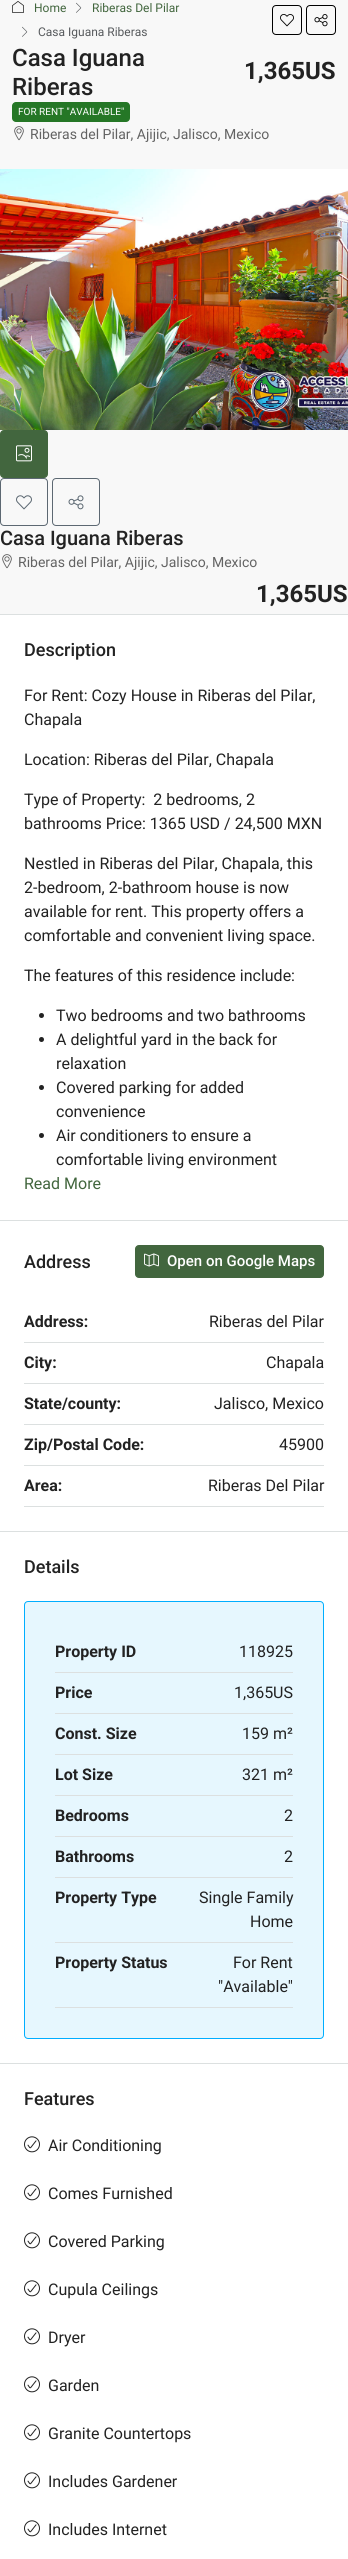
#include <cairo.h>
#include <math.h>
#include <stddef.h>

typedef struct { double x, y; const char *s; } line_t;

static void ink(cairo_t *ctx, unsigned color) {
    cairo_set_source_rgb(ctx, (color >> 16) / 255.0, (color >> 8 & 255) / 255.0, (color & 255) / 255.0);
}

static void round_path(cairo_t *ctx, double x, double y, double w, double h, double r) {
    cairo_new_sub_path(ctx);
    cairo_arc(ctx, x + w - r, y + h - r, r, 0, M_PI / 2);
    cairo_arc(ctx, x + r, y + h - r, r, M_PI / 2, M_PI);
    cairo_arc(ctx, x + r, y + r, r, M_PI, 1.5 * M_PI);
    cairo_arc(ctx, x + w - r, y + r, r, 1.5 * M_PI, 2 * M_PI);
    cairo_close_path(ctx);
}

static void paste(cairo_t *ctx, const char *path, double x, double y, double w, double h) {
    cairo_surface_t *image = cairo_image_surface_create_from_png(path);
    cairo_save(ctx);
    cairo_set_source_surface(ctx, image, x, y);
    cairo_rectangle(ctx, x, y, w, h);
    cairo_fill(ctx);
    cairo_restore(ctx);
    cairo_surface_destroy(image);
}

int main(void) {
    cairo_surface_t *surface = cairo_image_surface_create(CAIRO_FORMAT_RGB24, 348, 2559);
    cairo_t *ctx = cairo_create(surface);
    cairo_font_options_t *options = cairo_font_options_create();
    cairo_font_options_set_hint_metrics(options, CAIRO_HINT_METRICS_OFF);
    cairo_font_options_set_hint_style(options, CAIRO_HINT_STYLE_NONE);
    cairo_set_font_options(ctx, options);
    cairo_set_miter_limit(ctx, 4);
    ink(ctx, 0xF8F8F8);
    cairo_paint(ctx);
    paste(ctx, "media/1.png", 12, 1, 12, 12);
    cairo_select_font_face(ctx, "Roboto", CAIRO_FONT_SLANT_NORMAL, CAIRO_FONT_WEIGHT_NORMAL);
    cairo_set_font_size(ctx, 12);
    ink(ctx, 0x42663E);
    cairo_move_to(ctx, 34, 12);
    cairo_show_text(ctx, "Home");
    paste(ctx, "media/2.png", 76, 2, 6, 11);
    cairo_move_to(ctx, 92, 12);
    cairo_show_text(ctx, "Riberas Del Pilar");
    paste(ctx, "media/2.png", 22, 26, 6, 11);
    ink(ctx, 0x575A5D);
    cairo_move_to(ctx, 38, 36);
    cairo_show_text(ctx, "Casa Iguana Riberas");
    round_path(ctx, 272.5, 5.5, 29, 29, 3.5);
    ink(ctx, 0x000000);
    cairo_set_line_width(ctx, 1);
    cairo_stroke(ctx);
    paste(ctx, "media/3.png", 280, 14, 14, 13);
    round_path(ctx, 306.5, 5.5, 29, 29, 3.5);
    cairo_stroke(ctx);
    paste(ctx, "media/4.png", 314, 14, 14, 13);
    cairo_select_font_face(ctx, "Roboto Medium", CAIRO_FONT_SLANT_NORMAL, CAIRO_FONT_WEIGHT_NORMAL);
    cairo_set_font_size(ctx, 24);
    ink(ctx, 0x222222);
    cairo_move_to(ctx, 12, 66);
    cairo_show_text(ctx, "Casa Iguana");
    cairo_move_to(ctx, 12, 95);
    cairo_show_text(ctx, "Riberas");
    cairo_select_font_face(ctx, "Roboto", CAIRO_FONT_SLANT_NORMAL, CAIRO_FONT_WEIGHT_BOLD);
    cairo_move_to(ctx, 244, 79);
    cairo_show_text(ctx, "1,365US");
    ink(ctx, 0x257726);
    round_path(ctx, 12, 102, 118, 20, 4);
    cairo_fill(ctx);
    cairo_select_font_face(ctx, "Roboto", CAIRO_FONT_SLANT_NORMAL, CAIRO_FONT_WEIGHT_NORMAL);
    cairo_set_font_size(ctx, 10);
    ink(ctx, 0xFFFFFF);
    cairo_move_to(ctx, 18, 115);
    cairo_show_text(ctx, "FOR RENT \"AVAILABLE\"");
    paste(ctx, "media/5.png", 14, 126, 10, 15);
    cairo_set_font_size(ctx, 14);
    ink(ctx, 0x636363);
    cairo_move_to(ctx, 30, 139);
    cairo_show_text(ctx, "Riberas del Pilar, Ajijic, Jalisco, Mexico");
    paste(ctx, "media/6.png", 0, 169, 348, 261);
    ink(ctx, 0x42663E);
    round_path(ctx, 0.5, 430.5, 47, 47, 3.5);
    cairo_fill_preserve(ctx);
    cairo_stroke(ctx);
    paste(ctx, "media/7.png", 16, 445, 16, 17);
    round_path(ctx, 0.5, 478.5, 47, 47, 3.5);
    ink(ctx, 0x5C6872);
    cairo_stroke(ctx);
    paste(ctx, "media/8.png", 16, 495, 16, 15);
    round_path(ctx, 52.5, 478.5, 47, 47, 3.5);
    cairo_stroke(ctx);
    paste(ctx, "media/9.png", 68, 495, 16, 15);
    cairo_select_font_face(ctx, "Roboto Medium", CAIRO_FONT_SLANT_NORMAL, CAIRO_FONT_WEIGHT_NORMAL);
    cairo_set_font_size(ctx, 20);
    ink(ctx, 0x222222);
    cairo_move_to(ctx, 0, 545);
    cairo_show_text(ctx, "Casa Iguana Riberas");
    paste(ctx, "media/5.png", 2, 554, 10, 15);
    cairo_select_font_face(ctx, "Roboto", CAIRO_FONT_SLANT_NORMAL, CAIRO_FONT_WEIGHT_NORMAL);
    cairo_set_font_size(ctx, 14);
    ink(ctx, 0x636363);
    cairo_move_to(ctx, 18, 567);
    cairo_show_text(ctx, "Riberas del Pilar, Ajijic, Jalisco, Mexico");
    cairo_select_font_face(ctx, "Roboto", CAIRO_FONT_SLANT_NORMAL, CAIRO_FONT_WEIGHT_BOLD);
    cairo_set_font_size(ctx, 24);
    ink(ctx, 0x222222);
    cairo_move_to(ctx, 256, 602);
    cairo_show_text(ctx, "1,365US");
    ink(ctx, 0xFFFFFF);
    cairo_rectangle(ctx, 0, 615, 348, 605);
    cairo_fill(ctx);
    ink(ctx, 0xDCE0E0);
    cairo_rectangle(ctx, 0, 614, 348, 1);
    cairo_fill(ctx);
    cairo_select_font_face(ctx, "Roboto Medium", CAIRO_FONT_SLANT_NORMAL, CAIRO_FONT_WEIGHT_NORMAL);
    cairo_set_font_size(ctx, 18);
    ink(ctx, 0x222222);
    cairo_move_to(ctx, 24, 656);
    cairo_show_text(ctx, "Description");
    cairo_select_font_face(ctx, "Roboto", CAIRO_FONT_SLANT_NORMAL, CAIRO_FONT_WEIGHT_NORMAL);
    cairo_set_font_size(ctx, 16);
    {
        static const line_t items[] = {
            {24, 701, "For Rent: Cozy House in Riberas del Pilar,"},
            {24, 725, "Chapala"},
            {24, 765, "Location: Riberas del Pilar, Chapala"},
            {24, 805, "Type of Property:  2 bedrooms, 2"},
            {24, 829, "bathrooms Price: 1365 USD / 24,500 MXN"},
            {24, 869, "Nestled in Riberas del Pilar, Chapala, this"},
            {24, 893, "2-bedroom, 2-bathroom house is now"},
            {24, 917, "available for rent. This property offers a"},
            {24, 941, "comfortable and convenient living space."},
            {24, 981, "The features of this residence include:"},
        };
        for (size_t i = 0; i < sizeof items / sizeof *items; i++) {
            cairo_move_to(ctx, items[i].x, items[i].y);
            cairo_show_text(ctx, items[i].s);
        }
    }
    cairo_new_path(ctx);
    cairo_arc(ctx, 41.5, 1015.5, 2.5, 0, 2 * M_PI);
    cairo_fill(ctx);
    cairo_move_to(ctx, 56, 1021);
    cairo_show_text(ctx, "Two bedrooms and two bathrooms");
    cairo_new_path(ctx);
    cairo_arc(ctx, 41.5, 1039.5, 2.5, 0, 2 * M_PI);
    cairo_fill(ctx);
    cairo_move_to(ctx, 56, 1045);
    cairo_show_text(ctx, "A delightful yard in the back for");
    cairo_move_to(ctx, 56, 1069);
    cairo_show_text(ctx, "relaxation");
    cairo_new_path(ctx);
    cairo_arc(ctx, 41.5, 1087.5, 2.5, 0, 2 * M_PI);
    cairo_fill(ctx);
    cairo_move_to(ctx, 56, 1093);
    cairo_show_text(ctx, "Covered parking for added");
    cairo_move_to(ctx, 56, 1117);
    cairo_show_text(ctx, "convenience");
    cairo_new_path(ctx);
    cairo_arc(ctx, 41.5, 1135.5, 2.5, 0, 2 * M_PI);
    cairo_fill(ctx);
    cairo_move_to(ctx, 56, 1141);
    cairo_show_text(ctx, "Air conditioners to ensure a");
    cairo_move_to(ctx, 56, 1165);
    cairo_show_text(ctx, "comfortable living environment");
    ink(ctx, 0x42663E);
    cairo_move_to(ctx, 24, 1189);
    cairo_show_text(ctx, "Read More");
    ink(ctx, 0xFFFFFF);
    cairo_rectangle(ctx, 0, 1221, 348, 310);
    cairo_fill(ctx);
    ink(ctx, 0xDCE0E0);
    cairo_rectangle(ctx, 0, 1220, 348, 1);
    cairo_fill(ctx);
    cairo_select_font_face(ctx, "Roboto Medium", CAIRO_FONT_SLANT_NORMAL, CAIRO_FONT_WEIGHT_NORMAL);
    cairo_set_font_size(ctx, 18);
    ink(ctx, 0x222222);
    cairo_move_to(ctx, 24, 1268);
    cairo_show_text(ctx, "Address");
    ink(ctx, 0x42663E);
    round_path(ctx, 135.5, 1245.5, 188, 32, 3.5);
    cairo_fill_preserve(ctx);
    cairo_stroke(ctx);
    paste(ctx, "media/10.png", 144, 1253, 15, 14);
    cairo_set_font_size(ctx, 15);
    ink(ctx, 0xFFFFFF);
    cairo_move_to(ctx, 167, 1266);
    cairo_show_text(ctx, "Open on Google Maps");
    ink(ctx, 0xDCE0E0);
    cairo_rectangle(ctx, 24, 1342, 300, 1);
    cairo_fill(ctx);
    cairo_select_font_face(ctx, "Roboto", CAIRO_FONT_SLANT_NORMAL, CAIRO_FONT_WEIGHT_BOLD);
    cairo_set_font_size(ctx, 16);
    ink(ctx, 0x222222);
    cairo_move_to(ctx, 24, 1327);
    cairo_show_text(ctx, "Address:");
    cairo_select_font_face(ctx, "Roboto", CAIRO_FONT_SLANT_NORMAL, CAIRO_FONT_WEIGHT_NORMAL);
    cairo_move_to(ctx, 209, 1327);
    cairo_show_text(ctx, "Riberas del Pilar");
    ink(ctx, 0xDCE0E0);
    cairo_rectangle(ctx, 24, 1383, 300, 1);
    cairo_fill(ctx);
    cairo_select_font_face(ctx, "Roboto", CAIRO_FONT_SLANT_NORMAL, CAIRO_FONT_WEIGHT_BOLD);
    ink(ctx, 0x222222);
    cairo_move_to(ctx, 24, 1368);
    cairo_show_text(ctx, "City:");
    cairo_select_font_face(ctx, "Roboto", CAIRO_FONT_SLANT_NORMAL, CAIRO_FONT_WEIGHT_NORMAL);
    cairo_move_to(ctx, 266, 1368);
    cairo_show_text(ctx, "Chapala");
    ink(ctx, 0xDCE0E0);
    cairo_rectangle(ctx, 24, 1424, 300, 1);
    cairo_fill(ctx);
    cairo_select_font_face(ctx, "Roboto", CAIRO_FONT_SLANT_NORMAL, CAIRO_FONT_WEIGHT_BOLD);
    ink(ctx, 0x222222);
    cairo_move_to(ctx, 24, 1409);
    cairo_show_text(ctx, "State/county:");
    cairo_select_font_face(ctx, "Roboto", CAIRO_FONT_SLANT_NORMAL, CAIRO_FONT_WEIGHT_NORMAL);
    cairo_move_to(ctx, 214, 1409);
    cairo_show_text(ctx, "Jalisco, Mexico");
    ink(ctx, 0xDCE0E0);
    cairo_rectangle(ctx, 24, 1465, 300, 1);
    cairo_fill(ctx);
    cairo_select_font_face(ctx, "Roboto", CAIRO_FONT_SLANT_NORMAL, CAIRO_FONT_WEIGHT_BOLD);
    ink(ctx, 0x222222);
    cairo_move_to(ctx, 24, 1450);
    cairo_show_text(ctx, "Zip/Postal Code:");
    cairo_select_font_face(ctx, "Roboto", CAIRO_FONT_SLANT_NORMAL, CAIRO_FONT_WEIGHT_NORMAL);
    cairo_move_to(ctx, 279, 1450);
    cairo_show_text(ctx, "45900");
    ink(ctx, 0xDCE0E0);
    cairo_rectangle(ctx, 24, 1506, 300, 1);
    cairo_fill(ctx);
    cairo_select_font_face(ctx, "Roboto", CAIRO_FONT_SLANT_NORMAL, CAIRO_FONT_WEIGHT_BOLD);
    ink(ctx, 0x222222);
    cairo_move_to(ctx, 24, 1491);
    cairo_show_text(ctx, "Area:");
    cairo_select_font_face(ctx, "Roboto", CAIRO_FONT_SLANT_NORMAL, CAIRO_FONT_WEIGHT_NORMAL);
    cairo_move_to(ctx, 208, 1491);
    cairo_show_text(ctx, "Riberas Del Pilar");
    ink(ctx, 0xFFFFFF);
    cairo_rectangle(ctx, 0, 1532, 348, 531);
    cairo_fill(ctx);
    ink(ctx, 0xDCE0E0);
    cairo_rectangle(ctx, 0, 1531, 348, 1);
    cairo_fill(ctx);
    cairo_select_font_face(ctx, "Roboto Medium", CAIRO_FONT_SLANT_NORMAL, CAIRO_FONT_WEIGHT_NORMAL);
    cairo_set_font_size(ctx, 18);
    ink(ctx, 0x222222);
    cairo_move_to(ctx, 24, 1573);
    cairo_show_text(ctx, "Details");
    ink(ctx, 0xE6F7FE);
    round_path(ctx, 24.5, 1601.5, 299, 437, 3.5);
    cairo_fill_preserve(ctx);
    ink(ctx, 0x00AEFF);
    cairo_stroke(ctx);
    ink(ctx, 0xDCE0E0);
    cairo_rectangle(ctx, 55, 1672, 238, 1);
    cairo_fill(ctx);
    cairo_select_font_face(ctx, "Roboto", CAIRO_FONT_SLANT_NORMAL, CAIRO_FONT_WEIGHT_BOLD);
    cairo_set_font_size(ctx, 16);
    ink(ctx, 0x222222);
    cairo_move_to(ctx, 55, 1657);
    cairo_show_text(ctx, "Property ID");
    cairo_select_font_face(ctx, "Roboto", CAIRO_FONT_SLANT_NORMAL, CAIRO_FONT_WEIGHT_NORMAL);
    cairo_move_to(ctx, 239, 1657);
    cairo_show_text(ctx, "118925");
    ink(ctx, 0xDCE0E0);
    cairo_rectangle(ctx, 55, 1713, 238, 1);
    cairo_fill(ctx);
    cairo_select_font_face(ctx, "Roboto", CAIRO_FONT_SLANT_NORMAL, CAIRO_FONT_WEIGHT_BOLD);
    ink(ctx, 0x222222);
    cairo_move_to(ctx, 55, 1698);
    cairo_show_text(ctx, "Price");
    cairo_select_font_face(ctx, "Roboto", CAIRO_FONT_SLANT_NORMAL, CAIRO_FONT_WEIGHT_NORMAL);
    cairo_move_to(ctx, 234, 1698);
    cairo_show_text(ctx, "1,365US");
    ink(ctx, 0xDCE0E0);
    cairo_rectangle(ctx, 55, 1754, 238, 1);
    cairo_fill(ctx);
    cairo_select_font_face(ctx, "Roboto", CAIRO_FONT_SLANT_NORMAL, CAIRO_FONT_WEIGHT_BOLD);
    ink(ctx, 0x222222);
    cairo_move_to(ctx, 55, 1739);
    cairo_show_text(ctx, "Const. Size");
    cairo_select_font_face(ctx, "Roboto", CAIRO_FONT_SLANT_NORMAL, CAIRO_FONT_WEIGHT_NORMAL);
    cairo_move_to(ctx, 242, 1739);
    cairo_show_text(ctx, "159 m²");
    ink(ctx, 0xDCE0E0);
    cairo_rectangle(ctx, 55, 1795, 238, 1);
    cairo_fill(ctx);
    cairo_select_font_face(ctx, "Roboto", CAIRO_FONT_SLANT_NORMAL, CAIRO_FONT_WEIGHT_BOLD);
    ink(ctx, 0x222222);
    cairo_move_to(ctx, 55, 1780);
    cairo_show_text(ctx, "Lot Size");
    cairo_select_font_face(ctx, "Roboto", CAIRO_FONT_SLANT_NORMAL, CAIRO_FONT_WEIGHT_NORMAL);
    cairo_move_to(ctx, 242, 1780);
    cairo_show_text(ctx, "321 m²");
    ink(ctx, 0xDCE0E0);
    cairo_rectangle(ctx, 55, 1836, 238, 1);
    cairo_fill(ctx);
    cairo_select_font_face(ctx, "Roboto", CAIRO_FONT_SLANT_NORMAL, CAIRO_FONT_WEIGHT_BOLD);
    ink(ctx, 0x222222);
    cairo_move_to(ctx, 55, 1821);
    cairo_show_text(ctx, "Bedrooms");
    cairo_select_font_face(ctx, "Roboto", CAIRO_FONT_SLANT_NORMAL, CAIRO_FONT_WEIGHT_NORMAL);
    cairo_move_to(ctx, 284, 1821);
    cairo_show_text(ctx, "2");
    ink(ctx, 0xDCE0E0);
    cairo_rectangle(ctx, 55, 1877, 238, 1);
    cairo_fill(ctx);
    cairo_select_font_face(ctx, "Roboto", CAIRO_FONT_SLANT_NORMAL, CAIRO_FONT_WEIGHT_BOLD);
    ink(ctx, 0x222222);
    cairo_move_to(ctx, 55, 1862);
    cairo_show_text(ctx, "Bathrooms");
    cairo_select_font_face(ctx, "Roboto", CAIRO_FONT_SLANT_NORMAL, CAIRO_FONT_WEIGHT_NORMAL);
    cairo_move_to(ctx, 284, 1862);
    cairo_show_text(ctx, "2");
    ink(ctx, 0xDCE0E0);
    cairo_rectangle(ctx, 55, 1942, 238, 1);
    cairo_fill(ctx);
    cairo_select_font_face(ctx, "Roboto", CAIRO_FONT_SLANT_NORMAL, CAIRO_FONT_WEIGHT_BOLD);
    ink(ctx, 0x222222);
    cairo_move_to(ctx, 55, 1903);
    cairo_show_text(ctx, "Property Type");
    cairo_select_font_face(ctx, "Roboto", CAIRO_FONT_SLANT_NORMAL, CAIRO_FONT_WEIGHT_NORMAL);
    cairo_move_to(ctx, 199, 1903);
    cairo_show_text(ctx, "Single Family");
    cairo_move_to(ctx, 250, 1927);
    cairo_show_text(ctx, "Home");
    ink(ctx, 0xDCE0E0);
    cairo_rectangle(ctx, 55, 2007, 238, 1);
    cairo_fill(ctx);
    cairo_select_font_face(ctx, "Roboto", CAIRO_FONT_SLANT_NORMAL, CAIRO_FONT_WEIGHT_BOLD);
    ink(ctx, 0x222222);
    cairo_move_to(ctx, 55, 1968);
    cairo_show_text(ctx, "Property Status");
    cairo_select_font_face(ctx, "Roboto", CAIRO_FONT_SLANT_NORMAL, CAIRO_FONT_WEIGHT_NORMAL);
    cairo_move_to(ctx, 233, 1968);
    cairo_show_text(ctx, "For Rent");
    cairo_move_to(ctx, 218, 1992);
    cairo_show_text(ctx, "\"Available\"");
    ink(ctx, 0xFFFFFF);
    cairo_rectangle(ctx, 0, 2064, 348, 495);
    cairo_fill(ctx);
    ink(ctx, 0xDCE0E0);
    cairo_rectangle(ctx, 0, 2063, 348, 1);
    cairo_fill(ctx);
    cairo_select_font_face(ctx, "Roboto Medium", CAIRO_FONT_SLANT_NORMAL, CAIRO_FONT_WEIGHT_NORMAL);
    cairo_set_font_size(ctx, 18);
    ink(ctx, 0x222222);
    cairo_move_to(ctx, 24, 2105);
    cairo_show_text(ctx, "Features");
    paste(ctx, "media/11.png", 24, 2136, 16, 17);
    cairo_select_font_face(ctx, "Roboto", CAIRO_FONT_SLANT_NORMAL, CAIRO_FONT_WEIGHT_NORMAL);
    cairo_set_font_size(ctx, 16);
    cairo_move_to(ctx, 48, 2151);
    cairo_show_text(ctx, "Air Conditioning");
    paste(ctx, "media/11.png", 24, 2184, 16, 17);
    cairo_move_to(ctx, 48, 2199);
    cairo_show_text(ctx, "Comes Furnished");
    paste(ctx, "media/11.png", 24, 2232, 16, 17);
    cairo_move_to(ctx, 48, 2247);
    cairo_show_text(ctx, "Covered Parking");
    paste(ctx, "media/11.png", 24, 2280, 16, 17);
    cairo_move_to(ctx, 48, 2295);
    cairo_show_text(ctx, "Cupula Ceilings");
    paste(ctx, "media/11.png", 24, 2328, 16, 17);
    cairo_move_to(ctx, 48, 2343);
    cairo_show_text(ctx, "Dryer");
    paste(ctx, "media/11.png", 24, 2376, 16, 17);
    cairo_move_to(ctx, 48, 2391);
    cairo_show_text(ctx, "Garden");
    paste(ctx, "media/11.png", 24, 2424, 16, 17);
    cairo_move_to(ctx, 48, 2439);
    cairo_show_text(ctx, "Granite Countertops");
    paste(ctx, "media/11.png", 24, 2472, 16, 17);
    cairo_move_to(ctx, 48, 2487);
    cairo_show_text(ctx, "Includes Gardener");
    paste(ctx, "media/11.png", 24, 2520, 16, 17);
    cairo_move_to(ctx, 48, 2535);
    cairo_show_text(ctx, "Includes Internet");
    cairo_surface_write_to_png(surface, "image.png");
    cairo_font_options_destroy(options);
    cairo_destroy(ctx);
    cairo_surface_destroy(surface);
    return 0;
}
